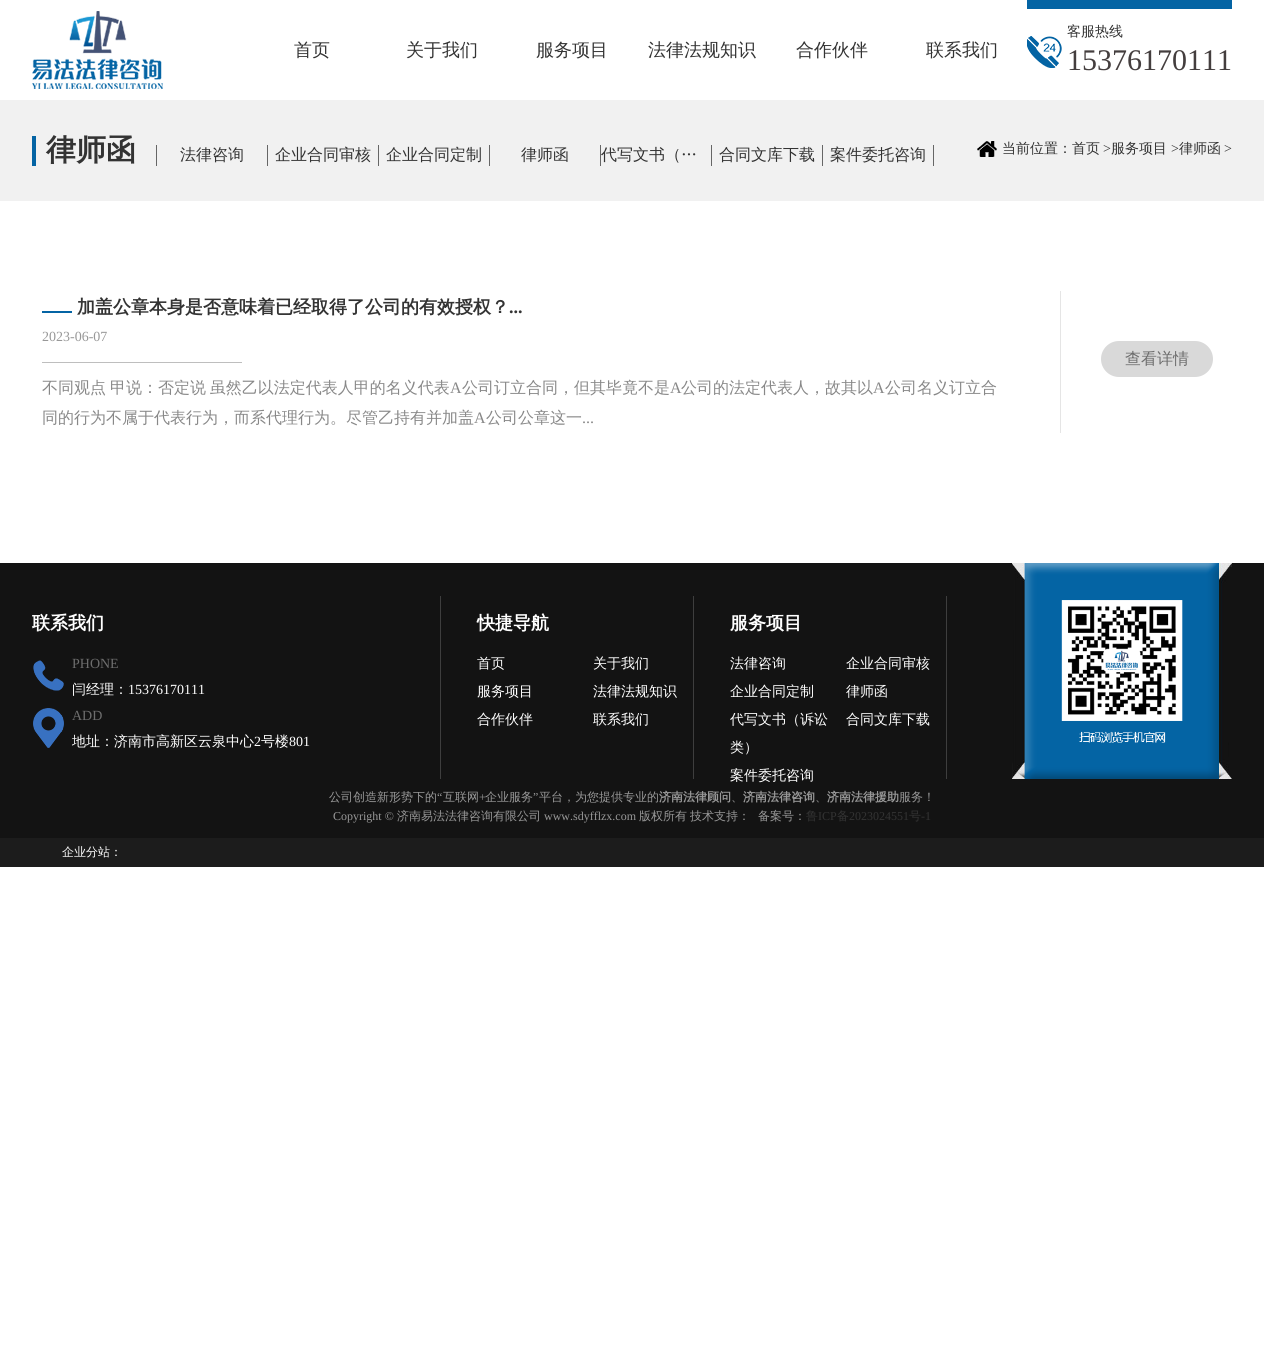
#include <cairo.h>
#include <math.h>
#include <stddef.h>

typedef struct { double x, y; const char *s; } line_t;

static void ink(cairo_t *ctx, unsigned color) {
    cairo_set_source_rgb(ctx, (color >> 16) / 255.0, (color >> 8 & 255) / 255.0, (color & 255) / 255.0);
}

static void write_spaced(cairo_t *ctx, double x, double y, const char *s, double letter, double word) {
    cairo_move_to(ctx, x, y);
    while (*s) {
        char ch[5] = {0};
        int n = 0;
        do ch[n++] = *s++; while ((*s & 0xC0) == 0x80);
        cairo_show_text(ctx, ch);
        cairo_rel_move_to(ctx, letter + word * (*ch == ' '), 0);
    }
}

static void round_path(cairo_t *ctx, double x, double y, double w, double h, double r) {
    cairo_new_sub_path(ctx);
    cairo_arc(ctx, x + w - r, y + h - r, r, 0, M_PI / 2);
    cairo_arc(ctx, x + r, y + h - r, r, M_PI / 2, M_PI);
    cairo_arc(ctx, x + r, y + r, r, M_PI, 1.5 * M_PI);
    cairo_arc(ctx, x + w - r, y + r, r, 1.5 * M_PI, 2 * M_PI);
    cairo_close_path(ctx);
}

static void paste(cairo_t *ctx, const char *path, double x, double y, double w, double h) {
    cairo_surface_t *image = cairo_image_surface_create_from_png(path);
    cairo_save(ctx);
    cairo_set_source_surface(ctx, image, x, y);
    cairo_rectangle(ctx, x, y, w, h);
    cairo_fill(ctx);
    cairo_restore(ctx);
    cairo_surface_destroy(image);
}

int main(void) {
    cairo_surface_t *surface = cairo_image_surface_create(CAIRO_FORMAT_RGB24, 1264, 1363);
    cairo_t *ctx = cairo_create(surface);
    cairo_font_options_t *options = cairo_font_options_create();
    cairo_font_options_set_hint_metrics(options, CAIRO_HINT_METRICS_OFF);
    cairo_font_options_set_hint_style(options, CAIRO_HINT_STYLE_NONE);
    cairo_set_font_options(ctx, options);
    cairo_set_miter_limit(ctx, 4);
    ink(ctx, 0xFFFFFF);
    cairo_paint(ctx);
    paste(ctx, "media/1.png", 32, 11, 131, 78);
    cairo_select_font_face(ctx, "WenQuanYi Zen Hei Medium", CAIRO_FONT_SLANT_NORMAL, CAIRO_FONT_WEIGHT_NORMAL);
    cairo_set_font_size(ctx, 18);
    ink(ctx, 0x333333);
    {
        static const line_t items[] = {
            {294, 56, "首页"},
            {406, 56, "关于我们"},
            {536, 56, "服务项目"},
            {648, 56, "法律法规知识"},
            {796, 56, "合作伙伴"},
            {926, 56, "联系我们"},
        };
        for (size_t i = 0; i < sizeof items / sizeof *items; i++) {
            cairo_move_to(ctx, items[i].x, items[i].y);
            cairo_show_text(ctx, items[i].s);
        }
    }
    paste(ctx, "media/2.png", 1027, 36, 35, 32);
    ink(ctx, 0x0464A4);
    cairo_rectangle(ctx, 1027, 0, 205, 9);
    cairo_fill(ctx);
    cairo_set_font_size(ctx, 14);
    ink(ctx, 0x333333);
    cairo_move_to(ctx, 1067, 36);
    cairo_show_text(ctx, "客服热线");
    cairo_select_font_face(ctx, "Liberation Serif", CAIRO_FONT_SLANT_NORMAL, CAIRO_FONT_WEIGHT_NORMAL);
    cairo_set_font_size(ctx, 30);
    ink(ctx, 0x443E3E);
    cairo_move_to(ctx, 1067, 70);
    cairo_show_text(ctx, "15376170111");
    ink(ctx, 0xF1F1F1);
    cairo_rectangle(ctx, 0, 100, 1264, 101);
    cairo_fill(ctx);
    ink(ctx, 0x0464A4);
    cairo_rectangle(ctx, 32, 136, 4, 30);
    cairo_fill(ctx);
    cairo_select_font_face(ctx, "WenQuanYi Zen Hei", CAIRO_FONT_SLANT_NORMAL, CAIRO_FONT_WEIGHT_BOLD);
    ink(ctx, 0x333333);
    cairo_move_to(ctx, 46, 160);
    cairo_show_text(ctx, "律师函");
    ink(ctx, 0x666666);
    cairo_rectangle(ctx, 267, 145, 1, 21);
    cairo_fill(ctx);
    cairo_rectangle(ctx, 156, 145, 1, 21);
    cairo_fill(ctx);
    cairo_select_font_face(ctx, "WenQuanYi Zen Hei Medium", CAIRO_FONT_SLANT_NORMAL, CAIRO_FONT_WEIGHT_NORMAL);
    cairo_set_font_size(ctx, 16);
    ink(ctx, 0x333333);
    cairo_move_to(ctx, 180, 160);
    cairo_show_text(ctx, "法律咨询");
    ink(ctx, 0x666666);
    cairo_rectangle(ctx, 378, 145, 1, 21);
    cairo_fill(ctx);
    ink(ctx, 0x333333);
    cairo_move_to(ctx, 275, 160);
    cairo_show_text(ctx, "企业合同审核");
    ink(ctx, 0x666666);
    cairo_rectangle(ctx, 489, 145, 1, 21);
    cairo_fill(ctx);
    ink(ctx, 0x333333);
    cairo_move_to(ctx, 386, 160);
    cairo_show_text(ctx, "企业合同定制");
    ink(ctx, 0x666666);
    cairo_rectangle(ctx, 600, 145, 1, 21);
    cairo_fill(ctx);
    ink(ctx, 0x333333);
    cairo_move_to(ctx, 521, 160);
    cairo_show_text(ctx, "律师函");
    ink(ctx, 0x666666);
    cairo_rectangle(ctx, 711, 145, 1, 21);
    cairo_fill(ctx);
    ink(ctx, 0x333333);
    cairo_move_to(ctx, 601, 160);
    cairo_show_text(ctx, "代写文书（…");
    ink(ctx, 0x666666);
    cairo_rectangle(ctx, 822, 145, 1, 21);
    cairo_fill(ctx);
    ink(ctx, 0x333333);
    cairo_move_to(ctx, 719, 160);
    cairo_show_text(ctx, "合同文库下载");
    ink(ctx, 0x666666);
    cairo_rectangle(ctx, 933, 145, 1, 21);
    cairo_fill(ctx);
    ink(ctx, 0x333333);
    cairo_move_to(ctx, 830, 160);
    cairo_show_text(ctx, "案件委托咨询");
    paste(ctx, "media/3.png", 977, 141, 20, 16);
    cairo_set_font_size(ctx, 14);
    cairo_move_to(ctx, 1002, 153);
    cairo_show_text(ctx, "当前位置：首页");
    cairo_select_font_face(ctx, "Liberation Serif", CAIRO_FONT_SLANT_NORMAL, CAIRO_FONT_WEIGHT_NORMAL);
    cairo_move_to(ctx, 1103, 153);
    cairo_show_text(ctx, ">");
    cairo_select_font_face(ctx, "WenQuanYi Zen Hei Medium", CAIRO_FONT_SLANT_NORMAL, CAIRO_FONT_WEIGHT_NORMAL);
    cairo_move_to(ctx, 1111, 153);
    cairo_show_text(ctx, "服务项目");
    cairo_select_font_face(ctx, "Liberation Serif", CAIRO_FONT_SLANT_NORMAL, CAIRO_FONT_WEIGHT_NORMAL);
    cairo_move_to(ctx, 1171, 153);
    cairo_show_text(ctx, ">");
    cairo_select_font_face(ctx, "WenQuanYi Zen Hei Medium", CAIRO_FONT_SLANT_NORMAL, CAIRO_FONT_WEIGHT_NORMAL);
    cairo_move_to(ctx, 1179, 153);
    cairo_show_text(ctx, "律师函");
    cairo_select_font_face(ctx, "Liberation Serif", CAIRO_FONT_SLANT_NORMAL, CAIRO_FONT_WEIGHT_NORMAL);
    cairo_move_to(ctx, 1224, 153);
    cairo_show_text(ctx, ">");
    ink(ctx, 0xE5E5E5);
    cairo_rectangle(ctx, 1060, 291, 1, 142);
    cairo_fill(ctx);
    ink(ctx, 0x0464A4);
    cairo_rectangle(ctx, 42, 311, 30, 2);
    cairo_fill(ctx);
    cairo_select_font_face(ctx, "WenQuanYi Zen Hei", CAIRO_FONT_SLANT_NORMAL, CAIRO_FONT_WEIGHT_BOLD);
    cairo_set_font_size(ctx, 18);
    ink(ctx, 0x333333);
    cairo_move_to(ctx, 77, 313);
    cairo_show_text(ctx, "加盖公章本身是否意味着已经取得了公司的有效授权？");
    cairo_select_font_face(ctx, "Liberation Serif", CAIRO_FONT_SLANT_NORMAL, CAIRO_FONT_WEIGHT_BOLD);
    cairo_move_to(ctx, 509, 313);
    cairo_show_text(ctx, "...");
    cairo_select_font_face(ctx, "Liberation Serif", CAIRO_FONT_SLANT_NORMAL, CAIRO_FONT_WEIGHT_NORMAL);
    cairo_set_font_size(ctx, 14);
    ink(ctx, 0x989898);
    cairo_move_to(ctx, 42, 341);
    cairo_show_text(ctx, "2023-06-07");
    ink(ctx, 0xBEBEBE);
    cairo_rectangle(ctx, 42, 362, 200, 1);
    cairo_fill(ctx);
    cairo_select_font_face(ctx, "WenQuanYi Zen Hei Medium", CAIRO_FONT_SLANT_NORMAL, CAIRO_FONT_WEIGHT_NORMAL);
    cairo_set_font_size(ctx, 16);
    ink(ctx, 0x888888);
    cairo_move_to(ctx, 42, 393);
    cairo_show_text(ctx, "不同观点");
    write_spaced(ctx, 110, 393, "甲说：否定说 虽然乙以法定代表人甲的名义代表", 0, -1);
    cairo_select_font_face(ctx, "Liberation Serif", CAIRO_FONT_SLANT_NORMAL, CAIRO_FONT_WEIGHT_NORMAL);
    cairo_move_to(ctx, 450, 393);
    cairo_show_text(ctx, "A");
    cairo_select_font_face(ctx, "WenQuanYi Zen Hei Medium", CAIRO_FONT_SLANT_NORMAL, CAIRO_FONT_WEIGHT_NORMAL);
    cairo_move_to(ctx, 462, 393);
    cairo_show_text(ctx, "公司订立合同，但其毕竟不是");
    cairo_select_font_face(ctx, "Liberation Serif", CAIRO_FONT_SLANT_NORMAL, CAIRO_FONT_WEIGHT_NORMAL);
    cairo_move_to(ctx, 670, 393);
    cairo_show_text(ctx, "A");
    cairo_select_font_face(ctx, "WenQuanYi Zen Hei Medium", CAIRO_FONT_SLANT_NORMAL, CAIRO_FONT_WEIGHT_NORMAL);
    cairo_move_to(ctx, 681, 393);
    cairo_show_text(ctx, "公司的法定代表人，故其以");
    cairo_select_font_face(ctx, "Liberation Serif", CAIRO_FONT_SLANT_NORMAL, CAIRO_FONT_WEIGHT_NORMAL);
    cairo_move_to(ctx, 873, 393);
    cairo_show_text(ctx, "A");
    cairo_select_font_face(ctx, "WenQuanYi Zen Hei Medium", CAIRO_FONT_SLANT_NORMAL, CAIRO_FONT_WEIGHT_NORMAL);
    cairo_move_to(ctx, 885, 393);
    cairo_show_text(ctx, "公司名义订立合");
    cairo_move_to(ctx, 42, 423);
    cairo_show_text(ctx, "同的行为不属于代表行为，而系代理行为。尽管乙持有并加盖");
    cairo_select_font_face(ctx, "Liberation Serif", CAIRO_FONT_SLANT_NORMAL, CAIRO_FONT_WEIGHT_NORMAL);
    cairo_move_to(ctx, 474, 423);
    cairo_show_text(ctx, "A");
    cairo_select_font_face(ctx, "WenQuanYi Zen Hei Medium", CAIRO_FONT_SLANT_NORMAL, CAIRO_FONT_WEIGHT_NORMAL);
    cairo_move_to(ctx, 486, 423);
    cairo_show_text(ctx, "公司公章这一");
    cairo_select_font_face(ctx, "Liberation Serif", CAIRO_FONT_SLANT_NORMAL, CAIRO_FONT_WEIGHT_NORMAL);
    cairo_move_to(ctx, 582, 423);
    cairo_show_text(ctx, "...");
    ink(ctx, 0xD9D9D9);
    round_path(ctx, 1101, 341, 112, 36, 18);
    cairo_fill(ctx);
    cairo_select_font_face(ctx, "WenQuanYi Zen Hei Medium", CAIRO_FONT_SLANT_NORMAL, CAIRO_FONT_WEIGHT_NORMAL);
    ink(ctx, 0x6D6D6D);
    cairo_move_to(ctx, 1125, 364);
    cairo_show_text(ctx, "查看详情");
    ink(ctx, 0x131313);
    cairo_rectangle(ctx, 0, 563, 1264, 275);
    cairo_fill(ctx);
    ink(ctx, 0x3E3E3E);
    cairo_rectangle(ctx, 440, 596, 1, 183);
    cairo_fill(ctx);
    cairo_select_font_face(ctx, "WenQuanYi Zen Hei", CAIRO_FONT_SLANT_NORMAL, CAIRO_FONT_WEIGHT_BOLD);
    cairo_set_font_size(ctx, 18);
    ink(ctx, 0xFFFFFF);
    cairo_move_to(ctx, 32, 629);
    cairo_show_text(ctx, "联系我们");
    paste(ctx, "media/4.png", 33, 660, 31, 31);
    cairo_select_font_face(ctx, "Liberation Serif", CAIRO_FONT_SLANT_NORMAL, CAIRO_FONT_WEIGHT_NORMAL);
    cairo_set_font_size(ctx, 14);
    ink(ctx, 0x6D6D6D);
    cairo_move_to(ctx, 72, 668);
    cairo_show_text(ctx, "PHONE");
    cairo_select_font_face(ctx, "WenQuanYi Zen Hei Medium", CAIRO_FONT_SLANT_NORMAL, CAIRO_FONT_WEIGHT_NORMAL);
    ink(ctx, 0xFFFFFF);
    cairo_move_to(ctx, 72, 694);
    cairo_show_text(ctx, "闫经理：");
    cairo_select_font_face(ctx, "Liberation Serif", CAIRO_FONT_SLANT_NORMAL, CAIRO_FONT_WEIGHT_NORMAL);
    cairo_move_to(ctx, 128, 694);
    cairo_show_text(ctx, "15376170111");
    paste(ctx, "media/5.png", 33, 708, 31, 40);
    ink(ctx, 0x6D6D6D);
    cairo_move_to(ctx, 72, 720);
    cairo_show_text(ctx, "ADD");
    cairo_select_font_face(ctx, "WenQuanYi Zen Hei Medium", CAIRO_FONT_SLANT_NORMAL, CAIRO_FONT_WEIGHT_NORMAL);
    ink(ctx, 0xFFFFFF);
    cairo_move_to(ctx, 72, 746);
    cairo_show_text(ctx, "地址：济南市高新区云泉中心");
    cairo_select_font_face(ctx, "Liberation Serif", CAIRO_FONT_SLANT_NORMAL, CAIRO_FONT_WEIGHT_NORMAL);
    cairo_move_to(ctx, 254, 746);
    cairo_show_text(ctx, "2");
    cairo_select_font_face(ctx, "WenQuanYi Zen Hei Medium", CAIRO_FONT_SLANT_NORMAL, CAIRO_FONT_WEIGHT_NORMAL);
    cairo_move_to(ctx, 261, 746);
    cairo_show_text(ctx, "号楼");
    cairo_select_font_face(ctx, "Liberation Serif", CAIRO_FONT_SLANT_NORMAL, CAIRO_FONT_WEIGHT_NORMAL);
    cairo_move_to(ctx, 289, 746);
    cairo_show_text(ctx, "801");
    ink(ctx, 0x3E3E3E);
    cairo_rectangle(ctx, 693, 596, 1, 183);
    cairo_fill(ctx);
    cairo_select_font_face(ctx, "WenQuanYi Zen Hei", CAIRO_FONT_SLANT_NORMAL, CAIRO_FONT_WEIGHT_BOLD);
    cairo_set_font_size(ctx, 18);
    ink(ctx, 0xFFFFFF);
    cairo_move_to(ctx, 477, 629);
    cairo_show_text(ctx, "快捷导航");
    cairo_select_font_face(ctx, "WenQuanYi Zen Hei Medium", CAIRO_FONT_SLANT_NORMAL, CAIRO_FONT_WEIGHT_NORMAL);
    cairo_set_font_size(ctx, 14);
    {
        static const line_t items[] = {
            {477, 668, "首页"},
            {593, 668, "关于我们"},
            {477, 696, "服务项目"},
            {593, 696, "法律法规知识"},
            {477, 724, "合作伙伴"},
            {593, 724, "联系我们"},
        };
        for (size_t i = 0; i < sizeof items / sizeof *items; i++) {
            cairo_move_to(ctx, items[i].x, items[i].y);
            cairo_show_text(ctx, items[i].s);
        }
    }
    ink(ctx, 0x3E3E3E);
    cairo_rectangle(ctx, 946, 596, 1, 183);
    cairo_fill(ctx);
    cairo_select_font_face(ctx, "WenQuanYi Zen Hei", CAIRO_FONT_SLANT_NORMAL, CAIRO_FONT_WEIGHT_BOLD);
    cairo_set_font_size(ctx, 18);
    ink(ctx, 0xFFFFFF);
    cairo_move_to(ctx, 730, 629);
    cairo_show_text(ctx, "服务项目");
    cairo_select_font_face(ctx, "WenQuanYi Zen Hei Medium", CAIRO_FONT_SLANT_NORMAL, CAIRO_FONT_WEIGHT_NORMAL);
    cairo_set_font_size(ctx, 14);
    {
        static const line_t items[] = {
            {730, 668, "法律咨询"},
            {846, 668, "企业合同审核"},
            {730, 696, "企业合同定制"},
            {846, 696, "律师函"},
            {730, 724, "代写文书（诉讼"},
            {730, 752, "类）"},
            {846, 724, "合同文库下载"},
            {730, 780, "案件委托咨询"},
        };
        for (size_t i = 0; i < sizeof items / sizeof *items; i++) {
            cairo_move_to(ctx, items[i].x, items[i].y);
            cairo_show_text(ctx, items[i].s);
        }
    }
    paste(ctx, "media/6.png", 1012, 563, 220, 216);
    cairo_set_font_size(ctx, 12);
    ink(ctx, 0x989898);
    cairo_move_to(ctx, 329, 801);
    cairo_show_text(ctx, "公司创造新形势下的");
    cairo_select_font_face(ctx, "Liberation Serif", CAIRO_FONT_SLANT_NORMAL, CAIRO_FONT_WEIGHT_NORMAL);
    cairo_move_to(ctx, 437, 801);
    cairo_show_text(ctx, "“");
    cairo_select_font_face(ctx, "WenQuanYi Zen Hei Medium", CAIRO_FONT_SLANT_NORMAL, CAIRO_FONT_WEIGHT_NORMAL);
    cairo_move_to(ctx, 443, 801);
    cairo_show_text(ctx, "互联网");
    cairo_select_font_face(ctx, "Liberation Serif", CAIRO_FONT_SLANT_NORMAL, CAIRO_FONT_WEIGHT_NORMAL);
    cairo_move_to(ctx, 479, 801);
    cairo_show_text(ctx, "+");
    cairo_select_font_face(ctx, "WenQuanYi Zen Hei Medium", CAIRO_FONT_SLANT_NORMAL, CAIRO_FONT_WEIGHT_NORMAL);
    cairo_move_to(ctx, 485, 801);
    cairo_show_text(ctx, "企业服务");
    cairo_select_font_face(ctx, "Liberation Serif", CAIRO_FONT_SLANT_NORMAL, CAIRO_FONT_WEIGHT_NORMAL);
    cairo_move_to(ctx, 533, 801);
    cairo_show_text(ctx, "”");
    cairo_select_font_face(ctx, "WenQuanYi Zen Hei Medium", CAIRO_FONT_SLANT_NORMAL, CAIRO_FONT_WEIGHT_NORMAL);
    cairo_move_to(ctx, 539, 801);
    cairo_show_text(ctx, "平台，为您提供专业的");
    cairo_select_font_face(ctx, "WenQuanYi Zen Hei", CAIRO_FONT_SLANT_NORMAL, CAIRO_FONT_WEIGHT_BOLD);
    {
        static const line_t items[] = {
            {659, 801, "济南法律顾问"},
            {743, 801, "济南法律咨询"},
            {827, 801, "济南法律援助"},
        };
        for (size_t i = 0; i < sizeof items / sizeof *items; i++) {
            cairo_move_to(ctx, items[i].x, items[i].y);
            cairo_show_text(ctx, items[i].s);
        }
    }
    cairo_select_font_face(ctx, "WenQuanYi Zen Hei Medium", CAIRO_FONT_SLANT_NORMAL, CAIRO_FONT_WEIGHT_NORMAL);
    {
        static const line_t items[] = {
            {899, 801, "服务！"},
            {731, 801, "、"},
            {815, 801, "、"},
        };
        for (size_t i = 0; i < sizeof items / sizeof *items; i++) {
            cairo_move_to(ctx, items[i].x, items[i].y);
            cairo_show_text(ctx, items[i].s);
        }
    }
    cairo_select_font_face(ctx, "Liberation Serif", CAIRO_FONT_SLANT_NORMAL, CAIRO_FONT_WEIGHT_NORMAL);
    cairo_move_to(ctx, 333, 820);
    cairo_show_text(ctx, "Copyright ©");
    cairo_select_font_face(ctx, "WenQuanYi Zen Hei Medium", CAIRO_FONT_SLANT_NORMAL, CAIRO_FONT_WEIGHT_NORMAL);
    cairo_move_to(ctx, 397, 820);
    cairo_show_text(ctx, "济南易法法律咨询有限公司");
    cairo_select_font_face(ctx, "Liberation Serif", CAIRO_FONT_SLANT_NORMAL, CAIRO_FONT_WEIGHT_NORMAL);
    cairo_move_to(ctx, 544, 820);
    cairo_show_text(ctx, "www.sdyfflzx.com");
    cairo_select_font_face(ctx, "WenQuanYi Zen Hei Medium", CAIRO_FONT_SLANT_NORMAL, CAIRO_FONT_WEIGHT_NORMAL);
    {
        static const line_t items[] = {
            {639, 820, "版权所有"},
            {690, 820, "技术支持："},
            {758, 820, "备案号："},
        };
        for (size_t i = 0; i < sizeof items / sizeof *items; i++) {
            cairo_move_to(ctx, items[i].x, items[i].y);
            cairo_show_text(ctx, items[i].s);
        }
    }
    ink(ctx, 0x333333);
    cairo_move_to(ctx, 806, 820);
    cairo_show_text(ctx, "鲁");
    cairo_select_font_face(ctx, "Liberation Serif", CAIRO_FONT_SLANT_NORMAL, CAIRO_FONT_WEIGHT_NORMAL);
    cairo_move_to(ctx, 818, 820);
    cairo_show_text(ctx, "ICP");
    cairo_select_font_face(ctx, "WenQuanYi Zen Hei Medium", CAIRO_FONT_SLANT_NORMAL, CAIRO_FONT_WEIGHT_NORMAL);
    cairo_move_to(ctx, 837, 820);
    cairo_show_text(ctx, "备");
    cairo_select_font_face(ctx, "Liberation Serif", CAIRO_FONT_SLANT_NORMAL, CAIRO_FONT_WEIGHT_NORMAL);
    cairo_move_to(ctx, 849, 820);
    cairo_show_text(ctx, "2023024551");
    cairo_select_font_face(ctx, "WenQuanYi Zen Hei Medium", CAIRO_FONT_SLANT_NORMAL, CAIRO_FONT_WEIGHT_NORMAL);
    cairo_move_to(ctx, 909, 820);
    cairo_show_text(ctx, "号");
    cairo_select_font_face(ctx, "Liberation Serif", CAIRO_FONT_SLANT_NORMAL, CAIRO_FONT_WEIGHT_NORMAL);
    cairo_move_to(ctx, 921, 820);
    cairo_show_text(ctx, "-1");
    ink(ctx, 0x1C1C1C);
    cairo_rectangle(ctx, 0, 838, 1264, 29);
    cairo_fill(ctx);
    cairo_select_font_face(ctx, "WenQuanYi Zen Hei Medium", CAIRO_FONT_SLANT_NORMAL, CAIRO_FONT_WEIGHT_NORMAL);
    ink(ctx, 0xFFFFFF);
    cairo_move_to(ctx, 62, 856);
    cairo_show_text(ctx, "企业分站：");
    cairo_surface_write_to_png(surface, "image.png");
    cairo_font_options_destroy(options);
    cairo_destroy(ctx);
    cairo_surface_destroy(surface);
    return 0;
}
